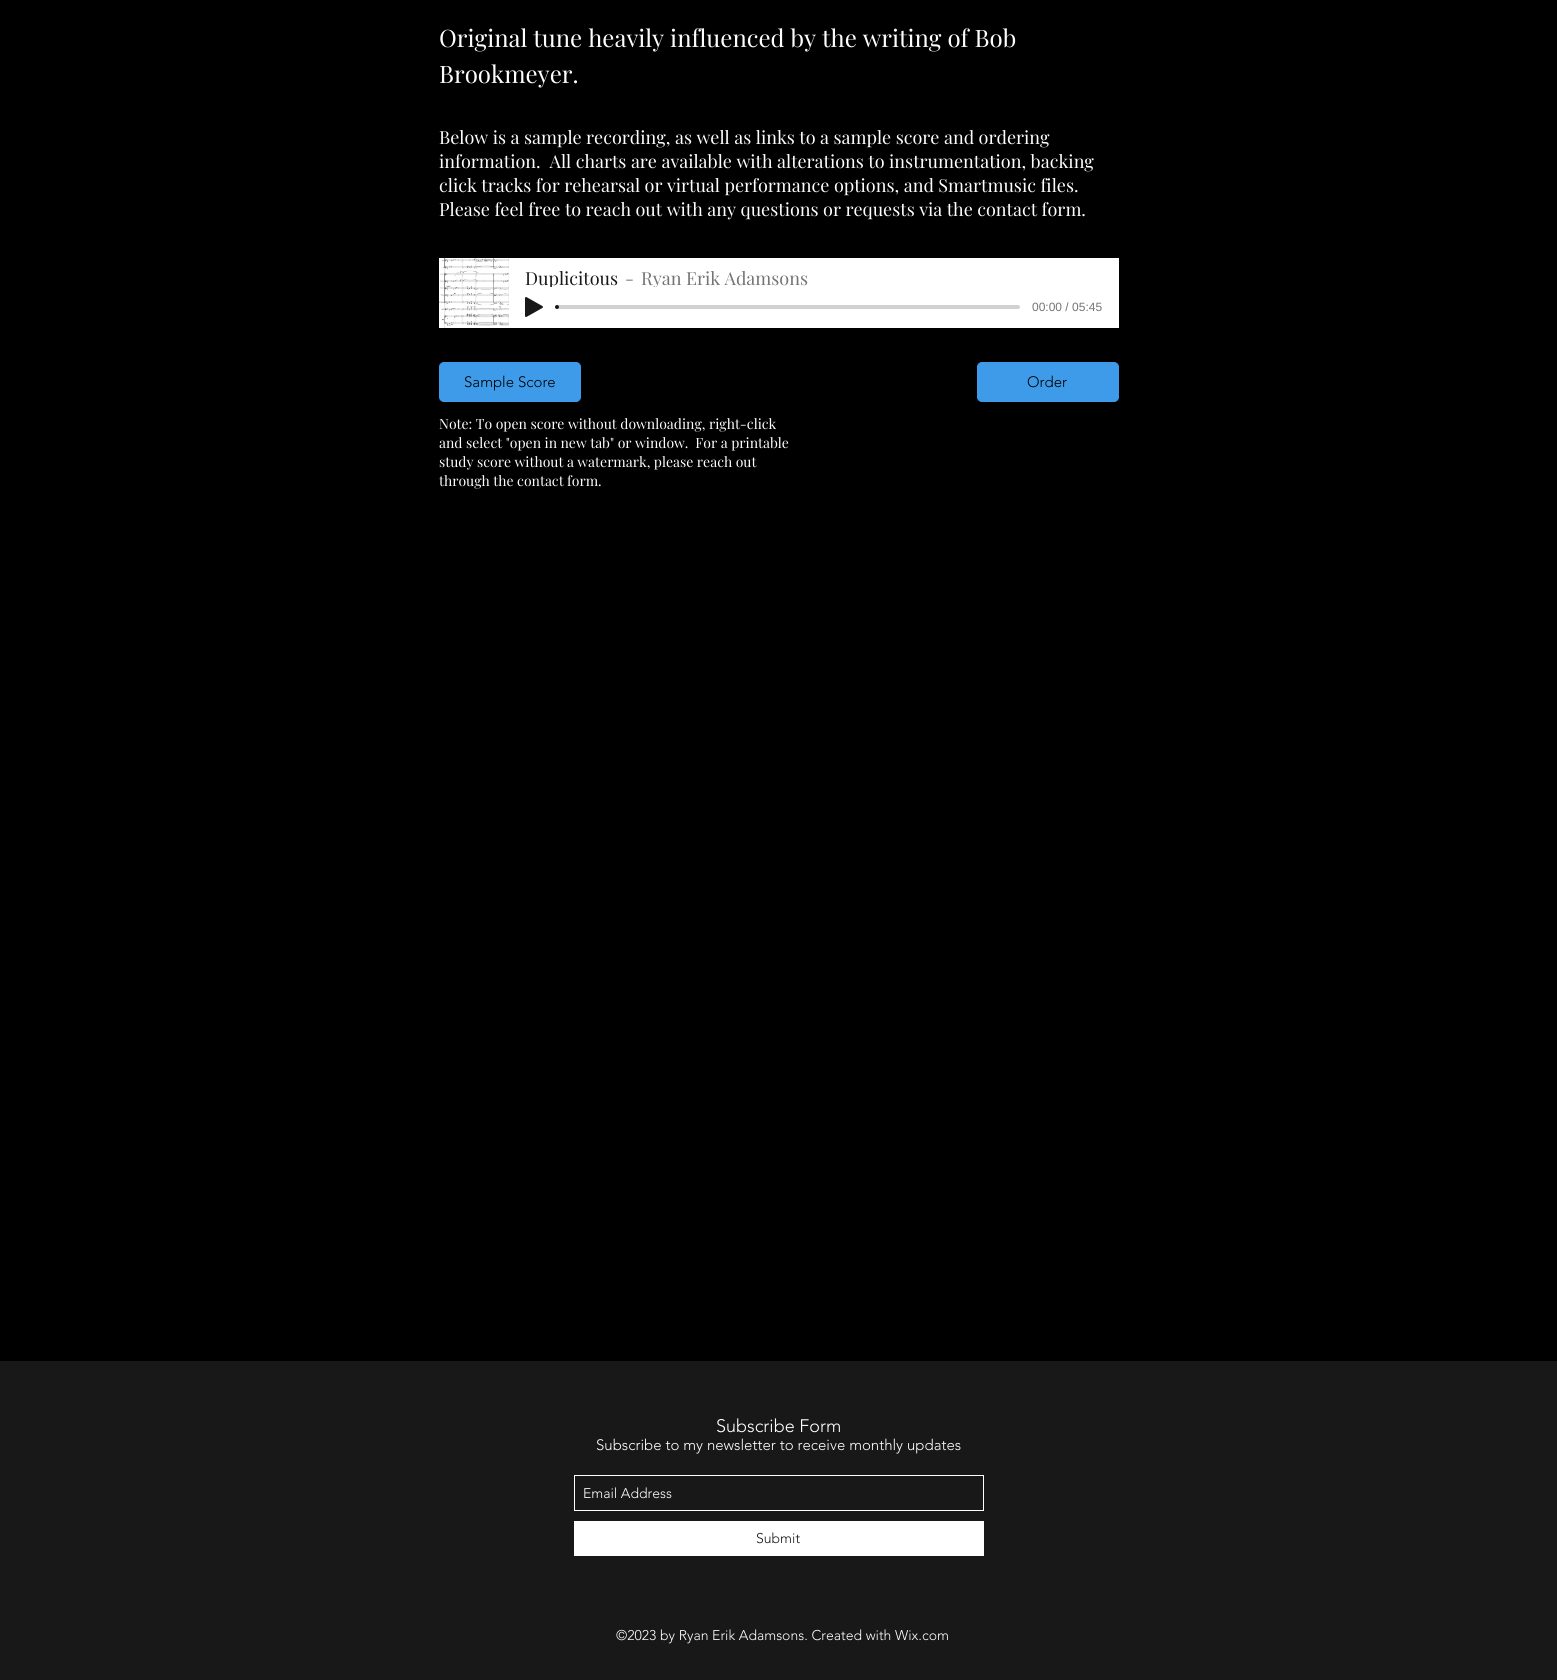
#include <cairo.h>
#include <math.h>
#include <stddef.h>

typedef struct { double x, y; const char *s; } line_t;

static void ink(cairo_t *ctx, unsigned color) {
    cairo_set_source_rgb(ctx, (color >> 16) / 255.0, (color >> 8 & 255) / 255.0, (color & 255) / 255.0);
}

static void round_path(cairo_t *ctx, double x, double y, double w, double h, double r) {
    cairo_new_sub_path(ctx);
    cairo_arc(ctx, x + w - r, y + h - r, r, 0, M_PI / 2);
    cairo_arc(ctx, x + r, y + h - r, r, M_PI / 2, M_PI);
    cairo_arc(ctx, x + r, y + r, r, M_PI, 1.5 * M_PI);
    cairo_arc(ctx, x + w - r, y + r, r, 1.5 * M_PI, 2 * M_PI);
    cairo_close_path(ctx);
}

static void paste(cairo_t *ctx, const char *path, double x, double y, double w, double h) {
    cairo_surface_t *image = cairo_image_surface_create_from_png(path);
    cairo_save(ctx);
    cairo_set_source_surface(ctx, image, x, y);
    cairo_rectangle(ctx, x, y, w, h);
    cairo_fill(ctx);
    cairo_restore(ctx);
    cairo_surface_destroy(image);
}

int main(void) {
    cairo_surface_t *surface = cairo_image_surface_create(CAIRO_FORMAT_RGB24, 1557, 1680);
    cairo_t *ctx = cairo_create(surface);
    cairo_font_options_t *options = cairo_font_options_create();
    cairo_font_options_set_hint_metrics(options, CAIRO_HINT_METRICS_OFF);
    cairo_font_options_set_hint_style(options, CAIRO_HINT_STYLE_NONE);
    cairo_set_font_options(ctx, options);
    cairo_set_miter_limit(ctx, 4);
    ink(ctx, 0x000000);
    cairo_paint(ctx);
    cairo_select_font_face(ctx, "Playfair Display", CAIRO_FONT_SLANT_NORMAL, CAIRO_FONT_WEIGHT_NORMAL);
    cairo_set_font_size(ctx, 24);
    ink(ctx, 0xFFFFFF);
    cairo_move_to(ctx, 439, 47);
    cairo_show_text(ctx, "Original tune heavily influenced by the writing of Bob");
    cairo_move_to(ctx, 439, 83);
    cairo_show_text(ctx, "Brookmeyer.");
    cairo_set_font_size(ctx, 18);
    {
        static const line_t items[] = {
            {439, 144, "Below is a sample recording, as well as links to a sample score and ordering"},
            {439, 168, "information.  All charts are available with alterations to instrumentation, backing"},
            {439, 192, "click tracks for rehearsal or virtual performance options, and Smartmusic files."},
            {439, 216, "Please feel free to reach out with any questions or requests via the contact form."},
        };
        for (size_t i = 0; i < sizeof items / sizeof *items; i++) {
            cairo_move_to(ctx, items[i].x, items[i].y);
            cairo_show_text(ctx, items[i].s);
        }
    }
    cairo_rectangle(ctx, 509, 258, 610, 70);
    cairo_fill(ctx);
    paste(ctx, "media/1.png", 439, 258, 70, 70);
    cairo_save(ctx);
    cairo_rectangle(ctx, 525, 269, 93, 18);
    cairo_clip(ctx);
    ink(ctx, 0x181818);
    cairo_move_to(ctx, 525, 285);
    cairo_show_text(ctx, "Duplicitous");
    cairo_restore(ctx);
    ink(ctx, 0x747474);
    cairo_move_to(ctx, 625, 285);
    cairo_show_text(ctx, "-");
    cairo_save(ctx);
    cairo_rectangle(ctx, 618, 269, 190, 18);
    cairo_clip(ctx);
    cairo_move_to(ctx, 641, 285);
    cairo_show_text(ctx, "Ryan Erik Adamsons");
    cairo_restore(ctx);
    paste(ctx, "media/2.png", 525, 297, 18, 20);
    ink(ctx, 0xD1D1D1);
    round_path(ctx, 557, 305, 463, 4, 2);
    cairo_fill(ctx);
    ink(ctx, 0x181818);
    cairo_arc(ctx, 557, 307, 2, 0, 2 * M_PI);
    cairo_fill(ctx);
    cairo_select_font_face(ctx, "Liberation Sans", CAIRO_FONT_SLANT_NORMAL, CAIRO_FONT_WEIGHT_NORMAL);
    cairo_set_font_size(ctx, 12);
    ink(ctx, 0x747474);
    cairo_move_to(ctx, 1032, 311);
    cairo_show_text(ctx, "00:00 / 05:45");
    ink(ctx, 0x3D9BE9);
    round_path(ctx, 439.5, 362.5, 141, 39, 4.5);
    cairo_fill_preserve(ctx);
    cairo_set_line_width(ctx, 1);
    cairo_stroke(ctx);
    cairo_select_font_face(ctx, "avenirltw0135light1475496 Light", CAIRO_FONT_SLANT_NORMAL, CAIRO_FONT_WEIGHT_NORMAL);
    cairo_set_font_size(ctx, 15);
    ink(ctx, 0x000000);
    cairo_move_to(ctx, 464, 387);
    cairo_show_text(ctx, "Sample Score");
    ink(ctx, 0x3D9BE9);
    round_path(ctx, 977.5, 362.5, 141, 39, 4.5);
    cairo_fill_preserve(ctx);
    cairo_stroke(ctx);
    ink(ctx, 0x000000);
    cairo_move_to(ctx, 1027, 387);
    cairo_show_text(ctx, "Order");
    cairo_select_font_face(ctx, "Playfair Display", CAIRO_FONT_SLANT_NORMAL, CAIRO_FONT_WEIGHT_NORMAL);
    cairo_set_font_size(ctx, 14);
    ink(ctx, 0xFFFFFF);
    {
        static const line_t items[] = {
            {439, 429, "Note: To open score without downloading, right-click"},
            {439, 448, "and select \"open in new tab\" or window.  For a printable"},
            {439, 467, "study score without a watermark, please reach out"},
            {439, 486, "through the contact form."},
        };
        for (size_t i = 0; i < sizeof items / sizeof *items; i++) {
            cairo_move_to(ctx, items[i].x, items[i].y);
            cairo_show_text(ctx, items[i].s);
        }
    }
    ink(ctx, 0x181818);
    cairo_rectangle(ctx, 0, 1361, 1557, 319);
    cairo_fill(ctx);
    cairo_select_font_face(ctx, "avenirltw0135light1475496 Light", CAIRO_FONT_SLANT_NORMAL, CAIRO_FONT_WEIGHT_NORMAL);
    cairo_set_font_size(ctx, 18);
    ink(ctx, 0xFFFFFF);
    cairo_move_to(ctx, 716, 1432);
    cairo_show_text(ctx, "Subscribe Form");
    cairo_set_font_size(ctx, 15);
    cairo_move_to(ctx, 596, 1450);
    cairo_show_text(ctx, "Subscribe to my newsletter to receive monthly updates");
    cairo_rectangle(ctx, 574.5, 1475.5, 409, 35);
    cairo_stroke(ctx);
    cairo_set_font_size(ctx, 14);
    cairo_move_to(ctx, 583, 1498);
    cairo_show_text(ctx, "Email Address");
    cairo_rectangle(ctx, 574, 1521, 410, 35);
    cairo_fill(ctx);
    ink(ctx, 0x181818);
    cairo_move_to(ctx, 756, 1543);
    cairo_show_text(ctx, "Submit");
    ink(ctx, 0xFFFFFF);
    cairo_move_to(ctx, 616, 1640);
    cairo_show_text(ctx, "©2023 by Ryan Erik Adamsons. Created with Wix.com");
    cairo_surface_write_to_png(surface, "image.png");
    cairo_font_options_destroy(options);
    cairo_destroy(ctx);
    cairo_surface_destroy(surface);
    return 0;
}
